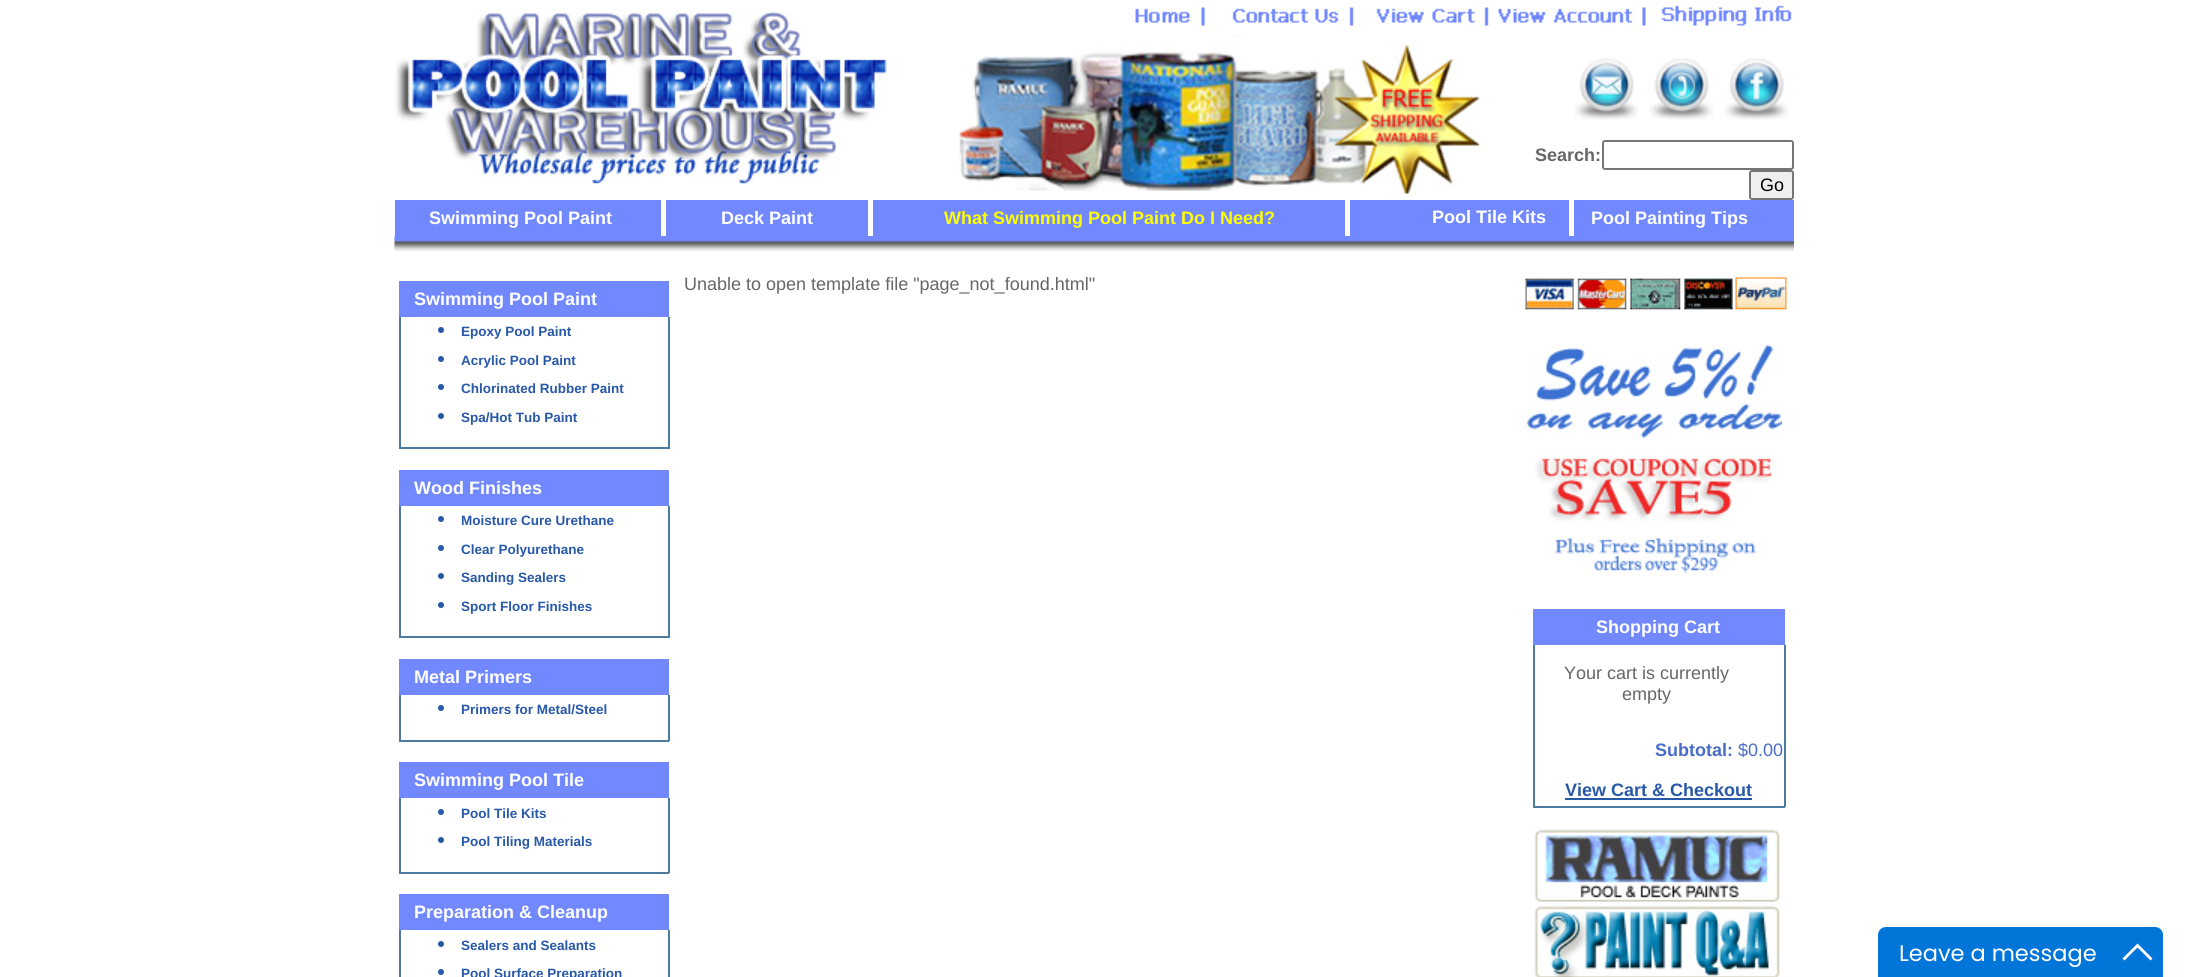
#include <cairo.h>
#include <math.h>
#include <stddef.h>

typedef struct { double x, y, w, h; unsigned color; } box_t;

static void ink(cairo_t *ctx, unsigned color) {
    cairo_set_source_rgb(ctx, (color >> 16) / 255.0, (color >> 8 & 255) / 255.0, (color & 255) / 255.0);
}

static void round_path(cairo_t *ctx, double x, double y, double w, double h, double r) {
    cairo_new_sub_path(ctx);
    cairo_arc(ctx, x + w - r, y + h - r, r, 0, M_PI / 2);
    cairo_arc(ctx, x + r, y + h - r, r, M_PI / 2, M_PI);
    cairo_arc(ctx, x + r, y + r, r, M_PI, 1.5 * M_PI);
    cairo_arc(ctx, x + w - r, y + r, r, 1.5 * M_PI, 2 * M_PI);
    cairo_close_path(ctx);
}

static void paste(cairo_t *ctx, const char *path, double x, double y, double w, double h) {
    cairo_surface_t *image = cairo_image_surface_create_from_png(path);
    cairo_save(ctx);
    cairo_set_source_surface(ctx, image, x, y);
    cairo_rectangle(ctx, x, y, w, h);
    cairo_fill(ctx);
    cairo_restore(ctx);
    cairo_surface_destroy(image);
}

int main(void) {
    cairo_surface_t *surface = cairo_image_surface_create(CAIRO_FORMAT_RGB24, 2186, 977);
    cairo_t *ctx = cairo_create(surface);
    cairo_font_options_t *options = cairo_font_options_create();
    cairo_font_options_set_hint_metrics(options, CAIRO_HINT_METRICS_OFF);
    cairo_font_options_set_hint_style(options, CAIRO_HINT_STYLE_NONE);
    cairo_set_font_options(ctx, options);
    cairo_set_miter_limit(ctx, 4);
    ink(ctx, 0xFFFFFF);
    cairo_paint(ctx);
    paste(ctx, "media/1.png", 395, 11, 492, 173);
    paste(ctx, "media/2.png", 1135, 7, 70, 19);
    paste(ctx, "media/3.png", 1232, 7, 122, 19);
    paste(ctx, "media/4.png", 1376, 7, 113, 19);
    paste(ctx, "media/5.png", 1498, 7, 148, 19);
    paste(ctx, "media/6.png", 1661, 5, 131, 21);
    paste(ctx, "media/7.png", 958, 34, 522, 161);
    paste(ctx, "media/8.png", 1574, 58, 65, 62);
    paste(ctx, "media/9.png", 1649, 58, 65, 62);
    paste(ctx, "media/10.png", 1724, 58, 65, 62);
    cairo_select_font_face(ctx, "Liberation Sans", CAIRO_FONT_SLANT_NORMAL, CAIRO_FONT_WEIGHT_BOLD);
    cairo_set_font_size(ctx, 18);
    ink(ctx, 0x666666);
    cairo_move_to(ctx, 1535, 161);
    cairo_show_text(ctx, "Search:");
    round_path(ctx, 1603, 141, 190, 28, 2);
    ink(ctx, 0x767676);
    cairo_stroke(ctx);
    ink(ctx, 0xEFEFEF);
    round_path(ctx, 1750, 171, 43, 28, 2);
    cairo_fill_preserve(ctx);
    ink(ctx, 0x767676);
    cairo_stroke(ctx);
    cairo_select_font_face(ctx, "Liberation Sans", CAIRO_FONT_SLANT_NORMAL, CAIRO_FONT_WEIGHT_NORMAL);
    ink(ctx, 0x000000);
    cairo_move_to(ctx, 1760, 191);
    cairo_show_text(ctx, "Go");
    ink(ctx, 0x7188FF);
    cairo_rectangle(ctx, 395, 200, 1399, 36);
    cairo_fill(ctx);
    cairo_select_font_face(ctx, "Liberation Sans", CAIRO_FONT_SLANT_NORMAL, CAIRO_FONT_WEIGHT_BOLD);
    ink(ctx, 0xFFFFFF);
    cairo_move_to(ctx, 429, 224);
    cairo_show_text(ctx, "Swimming Pool Paint");
    paste(ctx, "media/11.png", 394, 235, 1400, 17);
    cairo_rectangle(ctx, 661, 200, 5, 36);
    cairo_fill(ctx);
    cairo_move_to(ctx, 721, 224);
    cairo_show_text(ctx, "Deck Paint");
    cairo_rectangle(ctx, 868, 200, 5, 36);
    cairo_fill(ctx);
    ink(ctx, 0xFFFF00);
    cairo_move_to(ctx, 944, 224);
    cairo_show_text(ctx, "What Swimming Pool Paint Do I Need?");
    ink(ctx, 0xFFFFFF);
    cairo_rectangle(ctx, 1345, 200, 5, 36);
    cairo_fill(ctx);
    cairo_move_to(ctx, 1432, 223);
    cairo_show_text(ctx, "Pool Tile Kits");
    cairo_rectangle(ctx, 1569, 200, 5, 36);
    cairo_fill(ctx);
    cairo_move_to(ctx, 1591, 224);
    cairo_show_text(ctx, "Pool Painting Tips");
    cairo_select_font_face(ctx, "Liberation Sans", CAIRO_FONT_SLANT_NORMAL, CAIRO_FONT_WEIGHT_NORMAL);
    ink(ctx, 0x666666);
    cairo_move_to(ctx, 684, 290);
    cairo_show_text(ctx, "Unable to open template file \"page_not_found.html\"");
    ink(ctx, 0x7188FF);
    cairo_rectangle(ctx, 399, 281, 270, 36);
    cairo_fill(ctx);
    cairo_select_font_face(ctx, "Liberation Sans", CAIRO_FONT_SLANT_NORMAL, CAIRO_FONT_WEIGHT_BOLD);
    ink(ctx, 0xFFFFFF);
    cairo_move_to(ctx, 414, 305);
    cairo_show_text(ctx, "Swimming Pool Paint");
    {
        static const box_t items[] = {
            {668, 317, 2, 132, 0x4E7BA0},
            {399, 447, 270, 2, 0x4E7BA0},
            {399, 317, 2, 132, 0x4E7BA0},
        };
        for (size_t i = 0; i < sizeof items / sizeof *items; i++) {
            ink(ctx, items[i].color);
            cairo_rectangle(ctx, items[i].x, items[i].y, items[i].w, items[i].h);
            cairo_fill(ctx);
        }
    }
    ink(ctx, 0x2858A8);
    cairo_new_path(ctx);
    cairo_arc(ctx, 441, 330, 3, 0, 2 * M_PI);
    cairo_fill(ctx);
    cairo_set_font_size(ctx, 13.5);
    cairo_move_to(ctx, 461, 336);
    cairo_show_text(ctx, "Epoxy Pool Paint");
    cairo_new_path(ctx);
    cairo_arc(ctx, 441, 359, 3, 0, 2 * M_PI);
    cairo_fill(ctx);
    cairo_move_to(ctx, 461, 365);
    cairo_show_text(ctx, "Acrylic Pool Paint");
    cairo_new_path(ctx);
    cairo_arc(ctx, 441, 387, 3, 0, 2 * M_PI);
    cairo_fill(ctx);
    cairo_move_to(ctx, 461, 393);
    cairo_show_text(ctx, "Chlorinated Rubber Paint");
    cairo_new_path(ctx);
    cairo_arc(ctx, 441, 416, 3, 0, 2 * M_PI);
    cairo_fill(ctx);
    cairo_move_to(ctx, 461, 422);
    cairo_show_text(ctx, "Spa/Hot Tub Paint");
    ink(ctx, 0x7188FF);
    cairo_rectangle(ctx, 399, 470, 270, 36);
    cairo_fill(ctx);
    cairo_set_font_size(ctx, 18);
    ink(ctx, 0xFFFFFF);
    cairo_move_to(ctx, 414, 494);
    cairo_show_text(ctx, "Wood Finishes");
    {
        static const box_t items[] = {
            {668, 506, 2, 132, 0x4E7BA0},
            {399, 636, 270, 2, 0x4E7BA0},
            {399, 506, 2, 132, 0x4E7BA0},
        };
        for (size_t i = 0; i < sizeof items / sizeof *items; i++) {
            ink(ctx, items[i].color);
            cairo_rectangle(ctx, items[i].x, items[i].y, items[i].w, items[i].h);
            cairo_fill(ctx);
        }
    }
    ink(ctx, 0x2858A8);
    cairo_new_path(ctx);
    cairo_arc(ctx, 441, 519, 3, 0, 2 * M_PI);
    cairo_fill(ctx);
    cairo_set_font_size(ctx, 13.5);
    cairo_move_to(ctx, 461, 525);
    cairo_show_text(ctx, "Moisture Cure Urethane");
    cairo_new_path(ctx);
    cairo_arc(ctx, 441, 548, 3, 0, 2 * M_PI);
    cairo_fill(ctx);
    cairo_move_to(ctx, 461, 554);
    cairo_show_text(ctx, "Clear Polyurethane");
    cairo_new_path(ctx);
    cairo_arc(ctx, 441, 576, 3, 0, 2 * M_PI);
    cairo_fill(ctx);
    cairo_move_to(ctx, 461, 582);
    cairo_show_text(ctx, "Sanding Sealers");
    cairo_new_path(ctx);
    cairo_arc(ctx, 441, 605, 3, 0, 2 * M_PI);
    cairo_fill(ctx);
    cairo_move_to(ctx, 461, 611);
    cairo_show_text(ctx, "Sport Floor Finishes");
    ink(ctx, 0x7188FF);
    cairo_rectangle(ctx, 399, 659, 270, 36);
    cairo_fill(ctx);
    cairo_set_font_size(ctx, 18);
    ink(ctx, 0xFFFFFF);
    cairo_move_to(ctx, 414, 683);
    cairo_show_text(ctx, "Metal Primers");
    {
        static const box_t items[] = {
            {668, 695, 2, 46, 0x4E7BA0},
            {399, 740, 270, 2, 0x4E7BA0},
            {399, 695, 2, 46, 0x4E7BA0},
        };
        for (size_t i = 0; i < sizeof items / sizeof *items; i++) {
            ink(ctx, items[i].color);
            cairo_rectangle(ctx, items[i].x, items[i].y, items[i].w, items[i].h);
            cairo_fill(ctx);
        }
    }
    ink(ctx, 0x2858A8);
    cairo_new_path(ctx);
    cairo_arc(ctx, 441, 708, 3, 0, 2 * M_PI);
    cairo_fill(ctx);
    cairo_set_font_size(ctx, 13.5);
    cairo_move_to(ctx, 461, 714);
    cairo_show_text(ctx, "Primers for Metal/Steel");
    ink(ctx, 0x7188FF);
    cairo_rectangle(ctx, 399, 762, 270, 36);
    cairo_fill(ctx);
    cairo_set_font_size(ctx, 18);
    ink(ctx, 0xFFFFFF);
    cairo_move_to(ctx, 414, 786);
    cairo_show_text(ctx, "Swimming Pool Tile");
    {
        static const box_t items[] = {
            {668, 798, 2, 75, 0x4E7BA0},
            {399, 872, 270, 2, 0x4E7BA0},
            {399, 798, 2, 75, 0x4E7BA0},
        };
        for (size_t i = 0; i < sizeof items / sizeof *items; i++) {
            ink(ctx, items[i].color);
            cairo_rectangle(ctx, items[i].x, items[i].y, items[i].w, items[i].h);
            cairo_fill(ctx);
        }
    }
    ink(ctx, 0x2858A8);
    cairo_new_path(ctx);
    cairo_arc(ctx, 441, 812, 3, 0, 2 * M_PI);
    cairo_fill(ctx);
    cairo_set_font_size(ctx, 13.5);
    cairo_move_to(ctx, 461, 818);
    cairo_show_text(ctx, "Pool Tile Kits");
    cairo_new_path(ctx);
    cairo_arc(ctx, 441, 840, 3, 0, 2 * M_PI);
    cairo_fill(ctx);
    cairo_move_to(ctx, 461, 846);
    cairo_show_text(ctx, "Pool Tiling Materials");
    ink(ctx, 0x7188FF);
    cairo_rectangle(ctx, 399, 894, 270, 36);
    cairo_fill(ctx);
    cairo_set_font_size(ctx, 18);
    ink(ctx, 0xFFFFFF);
    cairo_move_to(ctx, 414, 918);
    cairo_show_text(ctx, "Preparation & Cleanup");
    ink(ctx, 0x4E7BA0);
    cairo_rectangle(ctx, 668, 930, 2, 47);
    cairo_fill(ctx);
    cairo_rectangle(ctx, 399, 930, 2, 47);
    cairo_fill(ctx);
    ink(ctx, 0x2858A8);
    cairo_arc(ctx, 441, 944, 3, 0, 2 * M_PI);
    cairo_fill(ctx);
    cairo_set_font_size(ctx, 13.5);
    cairo_move_to(ctx, 461, 950);
    cairo_show_text(ctx, "Sealers and Sealants");
    cairo_new_path(ctx);
    cairo_arc(ctx, 441, 972, 3, 0, 2 * M_PI);
    cairo_fill(ctx);
    cairo_move_to(ctx, 461, 978);
    cairo_show_text(ctx, "Pool Surface Preparation");
    paste(ctx, "media/12.png", 1524, 275, 263, 35);
    paste(ctx, "media/13.png", 1527, 344, 255, 230);
    ink(ctx, 0x7188FF);
    cairo_rectangle(ctx, 1533, 609, 252, 36);
    cairo_fill(ctx);
    cairo_set_font_size(ctx, 18);
    ink(ctx, 0xFFFFFF);
    cairo_move_to(ctx, 1596, 633);
    cairo_show_text(ctx, "Shopping Cart");
    {
        static const box_t items[] = {
            {1784, 645, 2, 162, 0x4E7BA0},
            {1533, 806, 252, 2, 0x4E7BA0},
            {1533, 645, 2, 162, 0x4E7BA0},
        };
        for (size_t i = 0; i < sizeof items / sizeof *items; i++) {
            ink(ctx, items[i].color);
            cairo_rectangle(ctx, items[i].x, items[i].y, items[i].w, items[i].h);
            cairo_fill(ctx);
        }
    }
    cairo_select_font_face(ctx, "Liberation Sans", CAIRO_FONT_SLANT_NORMAL, CAIRO_FONT_WEIGHT_NORMAL);
    ink(ctx, 0x666666);
    cairo_move_to(ctx, 1564, 679);
    cairo_show_text(ctx, "Your cart is currently");
    cairo_move_to(ctx, 1622, 700);
    cairo_show_text(ctx, "empty");
    cairo_select_font_face(ctx, "Liberation Sans", CAIRO_FONT_SLANT_NORMAL, CAIRO_FONT_WEIGHT_BOLD);
    ink(ctx, 0x496CC8);
    cairo_move_to(ctx, 1655, 756);
    cairo_show_text(ctx, "Subtotal:");
    cairo_select_font_face(ctx, "Liberation Sans", CAIRO_FONT_SLANT_NORMAL, CAIRO_FONT_WEIGHT_NORMAL);
    cairo_move_to(ctx, 1738, 756);
    cairo_show_text(ctx, "$0.00");
    cairo_select_font_face(ctx, "Liberation Sans", CAIRO_FONT_SLANT_NORMAL, CAIRO_FONT_WEIGHT_BOLD);
    ink(ctx, 0x2858A8);
    cairo_move_to(ctx, 1565, 796);
    cairo_show_text(ctx, "View Cart & Checkout");
    cairo_rectangle(ctx, 1565, 798, 187, 2);
    cairo_fill(ctx);
    paste(ctx, "media/14.png", 1534, 829, 246, 73);
    paste(ctx, "media/15.png", 1534, 905, 246, 72);
    ink(ctx, 0x0275D8);
    cairo_new_path(ctx);
    cairo_move_to(ctx, 1886, 927);
    cairo_line_to(ctx, 2155, 927);
    cairo_curve_to(ctx, 2159.5, 927, 2163, 930.5, 2163, 935);
    cairo_line_to(ctx, 2163, 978);
    cairo_line_to(ctx, 1878, 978);
    cairo_line_to(ctx, 1878, 935);
    cairo_curve_to(ctx, 1878, 930.5, 1881.5, 927, 1886, 927);
    cairo_close_path(ctx);
    cairo_fill(ctx);
    cairo_select_font_face(ctx, "Poppins", CAIRO_FONT_SLANT_NORMAL, CAIRO_FONT_WEIGHT_NORMAL);
    cairo_set_font_size(ctx, 22.5);
    ink(ctx, 0xFFFFFF);
    cairo_move_to(ctx, 1899, 961);
    cairo_show_text(ctx, "Leave a message");
    cairo_new_path(ctx);
    cairo_move_to(ctx, 2137.5, 943.5);
    cairo_line_to(ctx, 2152.5, 958.5);
    cairo_line_to(ctx, 2150.5, 960.5);
    cairo_line_to(ctx, 2137.5, 947.5);
    cairo_line_to(ctx, 2124.5, 960.5);
    cairo_line_to(ctx, 2122.5, 958.5);
    cairo_close_path(ctx);
    cairo_fill(ctx);
    cairo_surface_write_to_png(surface, "image.png");
    cairo_font_options_destroy(options);
    cairo_destroy(ctx);
    cairo_surface_destroy(surface);
    return 0;
}
